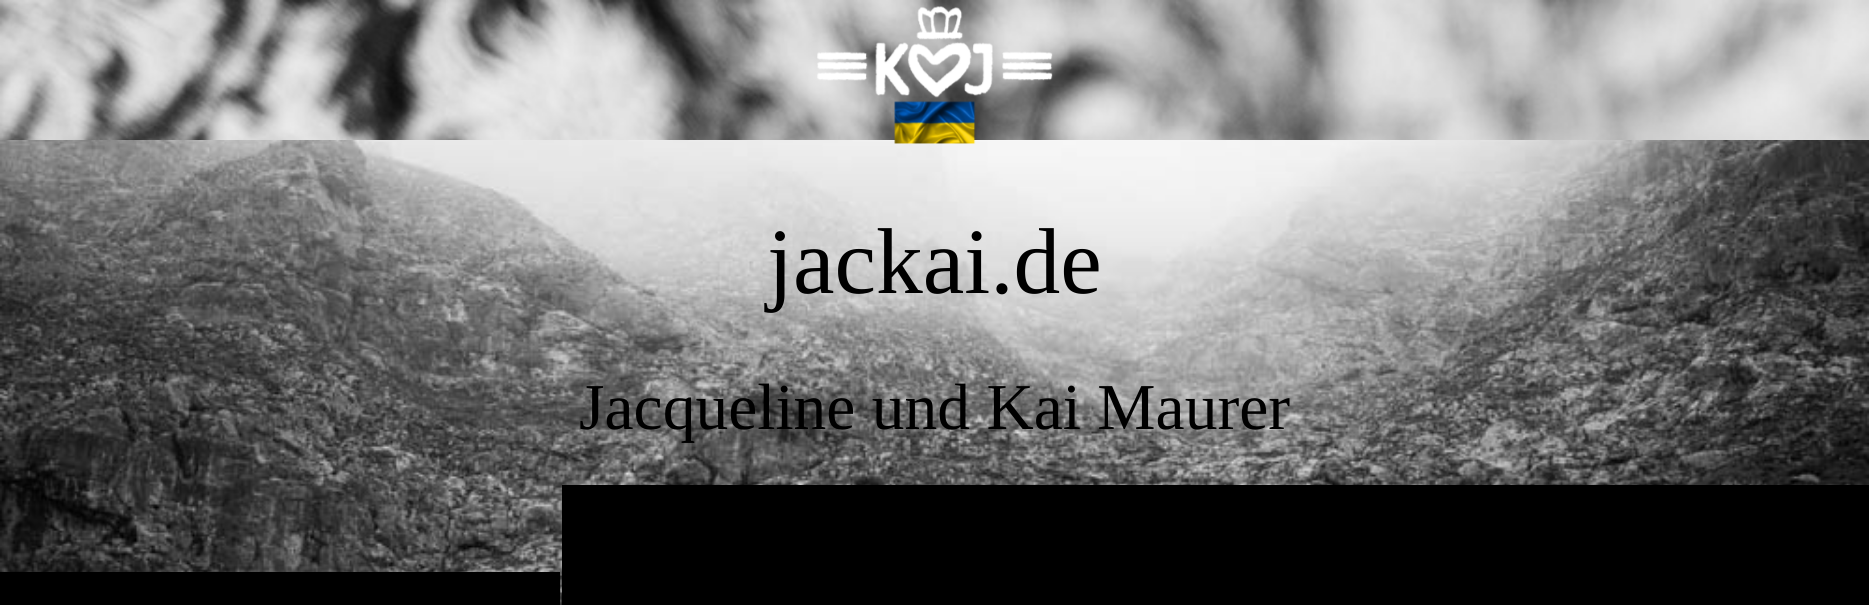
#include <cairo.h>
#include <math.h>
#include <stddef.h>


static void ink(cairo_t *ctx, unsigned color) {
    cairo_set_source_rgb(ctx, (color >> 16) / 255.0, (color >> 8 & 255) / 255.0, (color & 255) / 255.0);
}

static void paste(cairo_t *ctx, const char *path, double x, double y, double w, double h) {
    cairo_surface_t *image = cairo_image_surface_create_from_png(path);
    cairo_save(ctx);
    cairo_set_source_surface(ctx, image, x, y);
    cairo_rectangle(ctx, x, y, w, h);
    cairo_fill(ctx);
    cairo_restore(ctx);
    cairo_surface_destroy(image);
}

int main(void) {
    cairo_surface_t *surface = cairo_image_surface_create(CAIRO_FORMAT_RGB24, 1869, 605);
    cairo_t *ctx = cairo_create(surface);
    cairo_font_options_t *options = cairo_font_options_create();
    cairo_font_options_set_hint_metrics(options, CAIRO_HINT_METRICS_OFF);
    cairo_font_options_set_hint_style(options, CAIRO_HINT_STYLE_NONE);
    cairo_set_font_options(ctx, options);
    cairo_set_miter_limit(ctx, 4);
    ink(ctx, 0xFFFFFF);
    cairo_paint(ctx);
    paste(ctx, "media/1.png", 0, 0, 1869, 140);
    paste(ctx, "media/3.png", 0, 140, 1869, 465);
    paste(ctx, "media/2.png", 817, 6, 236, 138);
    cairo_select_font_face(ctx, "Liberation Serif", CAIRO_FONT_SLANT_NORMAL, CAIRO_FONT_WEIGHT_NORMAL);
    cairo_set_font_size(ctx, 93.5);
    ink(ctx, 0x000000);
    cairo_move_to(ctx, 767, 293);
    cairo_show_text(ctx, "jackai.de");
    cairo_set_font_size(ctx, 65.5);
    cairo_move_to(ctx, 579, 429);
    cairo_show_text(ctx, "Jacqueline und Kai Maurer");
    cairo_rectangle(ctx, 0, 572, 560, 33);
    cairo_fill(ctx);
    cairo_rectangle(ctx, 562, 485, 1307, 120);
    cairo_fill(ctx);
    cairo_surface_write_to_png(surface, "image.png");
    cairo_font_options_destroy(options);
    cairo_destroy(ctx);
    cairo_surface_destroy(surface);
    return 0;
}
